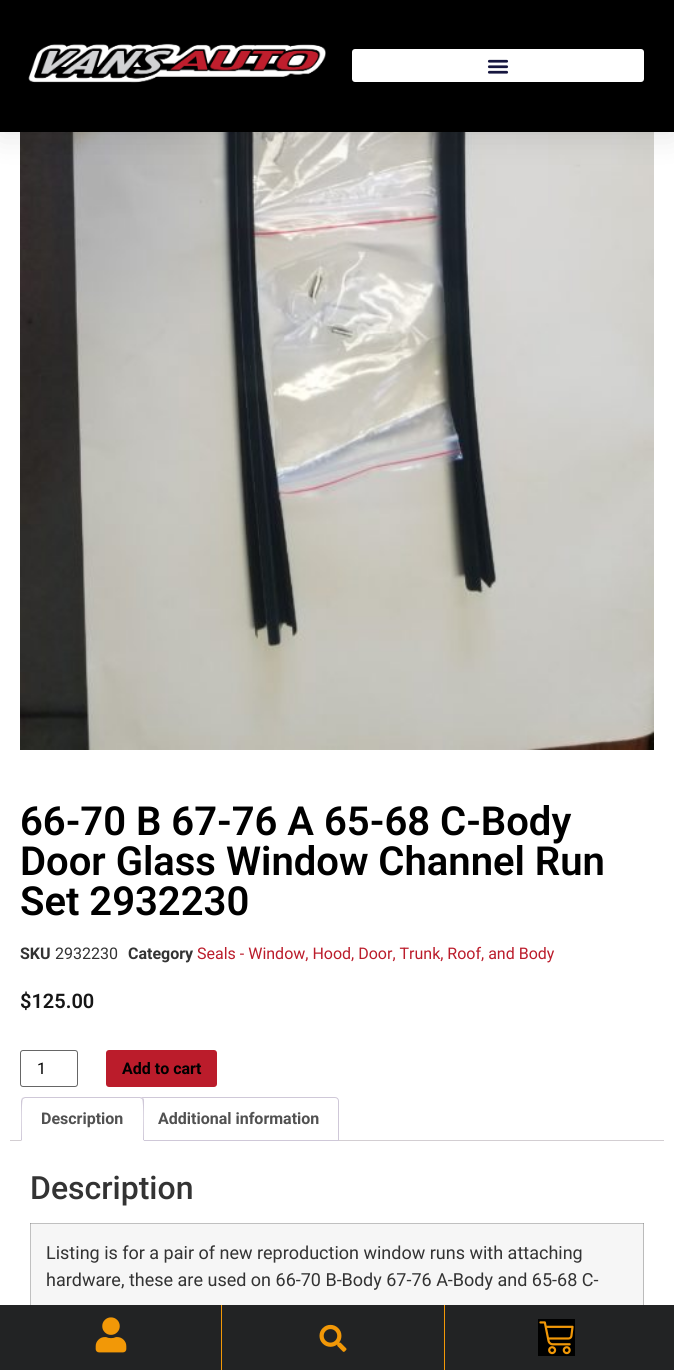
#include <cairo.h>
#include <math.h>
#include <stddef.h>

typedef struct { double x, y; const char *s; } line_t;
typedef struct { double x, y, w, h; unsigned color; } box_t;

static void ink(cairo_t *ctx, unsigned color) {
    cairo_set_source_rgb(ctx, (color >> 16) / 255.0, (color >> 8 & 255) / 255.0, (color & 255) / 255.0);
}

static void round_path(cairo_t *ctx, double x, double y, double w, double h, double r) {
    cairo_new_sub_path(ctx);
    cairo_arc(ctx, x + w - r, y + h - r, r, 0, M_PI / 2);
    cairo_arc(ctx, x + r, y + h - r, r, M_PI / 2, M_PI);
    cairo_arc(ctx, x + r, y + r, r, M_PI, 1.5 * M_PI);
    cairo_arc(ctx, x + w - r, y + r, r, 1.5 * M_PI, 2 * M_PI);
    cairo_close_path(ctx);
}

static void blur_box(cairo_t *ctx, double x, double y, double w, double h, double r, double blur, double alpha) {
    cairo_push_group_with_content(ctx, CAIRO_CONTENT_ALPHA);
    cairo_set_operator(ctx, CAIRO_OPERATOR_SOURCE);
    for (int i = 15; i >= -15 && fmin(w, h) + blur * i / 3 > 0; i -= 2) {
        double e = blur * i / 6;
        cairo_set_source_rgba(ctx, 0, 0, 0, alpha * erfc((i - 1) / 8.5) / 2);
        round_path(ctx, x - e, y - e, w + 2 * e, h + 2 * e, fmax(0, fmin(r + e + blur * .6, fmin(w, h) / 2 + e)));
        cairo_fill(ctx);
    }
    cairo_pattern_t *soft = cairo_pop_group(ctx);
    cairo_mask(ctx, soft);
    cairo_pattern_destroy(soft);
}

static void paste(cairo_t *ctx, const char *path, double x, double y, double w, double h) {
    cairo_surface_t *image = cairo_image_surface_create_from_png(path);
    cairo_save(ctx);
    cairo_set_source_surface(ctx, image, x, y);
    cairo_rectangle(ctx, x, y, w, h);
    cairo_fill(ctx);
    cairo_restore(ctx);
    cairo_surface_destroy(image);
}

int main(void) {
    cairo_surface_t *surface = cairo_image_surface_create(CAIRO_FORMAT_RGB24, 674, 1370);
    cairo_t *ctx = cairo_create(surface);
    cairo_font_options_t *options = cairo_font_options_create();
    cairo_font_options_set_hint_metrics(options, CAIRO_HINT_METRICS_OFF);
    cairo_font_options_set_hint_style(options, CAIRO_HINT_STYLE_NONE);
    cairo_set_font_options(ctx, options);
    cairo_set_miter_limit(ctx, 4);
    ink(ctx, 0xFFFFFF);
    cairo_paint(ctx);
    ink(ctx, 0xC0C0C0);
    cairo_rectangle(ctx, 30, 1223, 1, 82);
    cairo_fill(ctx);
    paste(ctx, "media/3.png", 20, 132, 634, 618);
    ink(ctx, 0x000000);
    blur_box(ctx, 0, 5, 674, 132, 0, 15, 0.1);
    ink(ctx, 0x000000);
    cairo_rectangle(ctx, 0, 0, 674, 132);
    cairo_fill(ctx);
    paste(ctx, "media/1.png", 28, 43, 298, 40);
    ink(ctx, 0xFFFFFF);
    round_path(ctx, 352, 49, 292, 33, 3);
    cairo_fill(ctx);
    paste(ctx, "media/2.png", 487, 59, 22, 15);
    cairo_select_font_face(ctx, "Roboto SemiBold", CAIRO_FONT_SLANT_NORMAL, CAIRO_FONT_WEIGHT_NORMAL);
    cairo_set_font_size(ctx, 40);
    ink(ctx, 0x000000);
    {
        static const line_t items[] = {
            {20, 835, "66-70 B 67-76 A 65-68 C-Body"},
            {20, 875, "Door Glass Window Channel Run"},
            {20, 915, "Set 2932230"},
        };
        for (size_t i = 0; i < sizeof items / sizeof *items; i++) {
            cairo_move_to(ctx, items[i].x, items[i].y);
            cairo_show_text(ctx, items[i].s);
        }
    }
    cairo_select_font_face(ctx, "Roboto", CAIRO_FONT_SLANT_NORMAL, CAIRO_FONT_WEIGHT_BOLD);
    cairo_set_font_size(ctx, 16);
    ink(ctx, 0x333333);
    cairo_move_to(ctx, 20, 959);
    cairo_show_text(ctx, "SKU");
    cairo_select_font_face(ctx, "Roboto", CAIRO_FONT_SLANT_NORMAL, CAIRO_FONT_WEIGHT_NORMAL);
    cairo_move_to(ctx, 55, 959);
    cairo_show_text(ctx, "2932230");
    cairo_select_font_face(ctx, "Roboto", CAIRO_FONT_SLANT_NORMAL, CAIRO_FONT_WEIGHT_BOLD);
    cairo_move_to(ctx, 128, 959);
    cairo_show_text(ctx, "Category");
    cairo_select_font_face(ctx, "Roboto", CAIRO_FONT_SLANT_NORMAL, CAIRO_FONT_WEIGHT_NORMAL);
    ink(ctx, 0xBB1C2B);
    cairo_move_to(ctx, 197, 959);
    cairo_show_text(ctx, "Seals - Window, Hood, Door, Trunk, Roof, and Body");
    cairo_select_font_face(ctx, "Roboto SemiBold", CAIRO_FONT_SLANT_NORMAL, CAIRO_FONT_WEIGHT_NORMAL);
    cairo_set_font_size(ctx, 20);
    ink(ctx, 0x161616);
    cairo_move_to(ctx, 20, 1008);
    cairo_show_text(ctx, "$125.00");
    round_path(ctx, 20.5, 1050.5, 57, 36, 2.5);
    ink(ctx, 0x666666);
    cairo_set_line_width(ctx, 1);
    cairo_stroke(ctx);
    cairo_select_font_face(ctx, "Roboto", CAIRO_FONT_SLANT_NORMAL, CAIRO_FONT_WEIGHT_NORMAL);
    cairo_set_font_size(ctx, 16);
    ink(ctx, 0x000000);
    cairo_move_to(ctx, 37, 1074);
    cairo_show_text(ctx, "1");
    ink(ctx, 0xBB1C2B);
    round_path(ctx, 106, 1050, 111, 37, 3);
    cairo_fill(ctx);
    cairo_select_font_face(ctx, "Roboto", CAIRO_FONT_SLANT_NORMAL, CAIRO_FONT_WEIGHT_BOLD);
    ink(ctx, 0x000000);
    cairo_move_to(ctx, 122, 1074);
    cairo_show_text(ctx, "Add to cart");
    ink(ctx, 0xD3CED2);
    cairo_rectangle(ctx, 10, 1140, 654, 1);
    cairo_fill(ctx);
    ink(ctx, 0xFFFFFF);
    cairo_new_path(ctx);
    cairo_move_to(ctx, 142, 1097.5);
    cairo_line_to(ctx, 335, 1097.5);
    cairo_curve_to(ctx, 337, 1097.5, 338.5, 1099, 338.5, 1101);
    cairo_line_to(ctx, 338.5, 1140.5);
    cairo_line_to(ctx, 138.5, 1140.5);
    cairo_line_to(ctx, 138.5, 1101);
    cairo_curve_to(ctx, 138.5, 1099, 140, 1097.5, 142, 1097.5);
    cairo_close_path(ctx);
    cairo_fill_preserve(ctx);
    ink(ctx, 0xCFC8D8);
    cairo_stroke(ctx);
    ink(ctx, 0xFFFFFF);
    cairo_new_path(ctx);
    cairo_move_to(ctx, 25, 1097);
    cairo_line_to(ctx, 140, 1097);
    cairo_curve_to(ctx, 142, 1097, 144, 1099, 144, 1101);
    cairo_line_to(ctx, 144, 1141);
    cairo_line_to(ctx, 21, 1141);
    cairo_line_to(ctx, 21, 1101);
    cairo_curve_to(ctx, 21, 1099, 23, 1097, 25, 1097);
    cairo_close_path(ctx);
    cairo_fill(ctx);
    ink(ctx, 0xCFC8D8);
    cairo_new_path(ctx);
    cairo_move_to(ctx, 25, 1097);
    cairo_line_to(ctx, 22, 1098);
    cairo_line_to(ctx, 23, 1099);
    cairo_line_to(ctx, 25, 1098);
    cairo_line_to(ctx, 140, 1098);
    cairo_line_to(ctx, 142, 1099);
    cairo_line_to(ctx, 143, 1098);
    cairo_line_to(ctx, 140, 1097);
    cairo_close_path(ctx);
    cairo_fill(ctx);
    cairo_new_path(ctx);
    cairo_move_to(ctx, 144, 1141);
    cairo_line_to(ctx, 144, 1101);
    cairo_curve_to(ctx, 144, 1100, 144, 1099, 143, 1098);
    cairo_line_to(ctx, 142, 1099);
    cairo_curve_to(ctx, 144, 1101, 143, 1135, 143, 1140);
    cairo_close_path(ctx);
    cairo_fill(ctx);
    ink(ctx, 0xFFFFFF);
    cairo_new_path(ctx);
    cairo_move_to(ctx, 144, 1141);
    cairo_line_to(ctx, 143, 1140);
    cairo_line_to(ctx, 22, 1140);
    cairo_line_to(ctx, 21, 1141);
    cairo_close_path(ctx);
    cairo_fill(ctx);
    ink(ctx, 0xCFC8D8);
    cairo_new_path(ctx);
    cairo_move_to(ctx, 21, 1141);
    cairo_line_to(ctx, 22, 1140);
    cairo_curve_to(ctx, 22, 1135, 21, 1101, 23, 1099);
    cairo_line_to(ctx, 22, 1098);
    cairo_line_to(ctx, 21, 1101);
    cairo_close_path(ctx);
    cairo_fill(ctx);
    ink(ctx, 0x515151);
    cairo_move_to(ctx, 41, 1124);
    cairo_show_text(ctx, "Description");
    cairo_move_to(ctx, 158, 1124);
    cairo_show_text(ctx, "Additional information");
    cairo_select_font_face(ctx, "Roboto Medium", CAIRO_FONT_SLANT_NORMAL, CAIRO_FONT_WEIGHT_NORMAL);
    cairo_set_font_size(ctx, 32);
    ink(ctx, 0x333333);
    cairo_move_to(ctx, 30, 1199);
    cairo_show_text(ctx, "Description");
    {
        static const box_t items[] = {
            {31, 1224, 612, 81, 0xF6F6F6},
            {643, 1224, 1, 81, 0xBBBBBB},
            {30, 1223, 614, 1, 0xC0C0C0},
            {30, 1223, 1, 1, 0xA0A0A0},
            {643, 1223, 1, 1, 0xA0A0A0},
        };
        for (size_t i = 0; i < sizeof items / sizeof *items; i++) {
            ink(ctx, items[i].color);
            cairo_rectangle(ctx, items[i].x, items[i].y, items[i].w, items[i].h);
            cairo_fill(ctx);
        }
    }
    cairo_select_font_face(ctx, "Roboto", CAIRO_FONT_SLANT_NORMAL, CAIRO_FONT_WEIGHT_NORMAL);
    cairo_set_font_size(ctx, 18);
    ink(ctx, 0x333333);
    cairo_move_to(ctx, 46, 1259);
    cairo_show_text(ctx, "Listing is for a pair of new reproduction window runs with attaching");
    cairo_move_to(ctx, 46, 1286);
    cairo_show_text(ctx, "hardware, these are used on 66-70 B-Body 67-76 A-Body and 65-68 C-");
    ink(ctx, 0x222324);
    cairo_rectangle(ctx, 0, 1305, 674, 65);
    cairo_fill(ctx);
    ink(ctx, 0xF29807);
    cairo_rectangle(ctx, 221, 1305, 1, 65);
    cairo_fill(ctx);
    paste(ctx, "media/4.png", 95, 1317, 32, 36);
    cairo_rectangle(ctx, 444, 1305, 1, 65);
    cairo_fill(ctx);
    paste(ctx, "media/5.png", 319, 1324, 28, 28);
    ink(ctx, 0x000000);
    cairo_rectangle(ctx, 538, 1319, 37, 37);
    cairo_fill(ctx);
    paste(ctx, "media/6.png", 539, 1321, 35, 34);
    cairo_surface_write_to_png(surface, "image.png");
    cairo_font_options_destroy(options);
    cairo_destroy(ctx);
    cairo_surface_destroy(surface);
    return 0;
}
